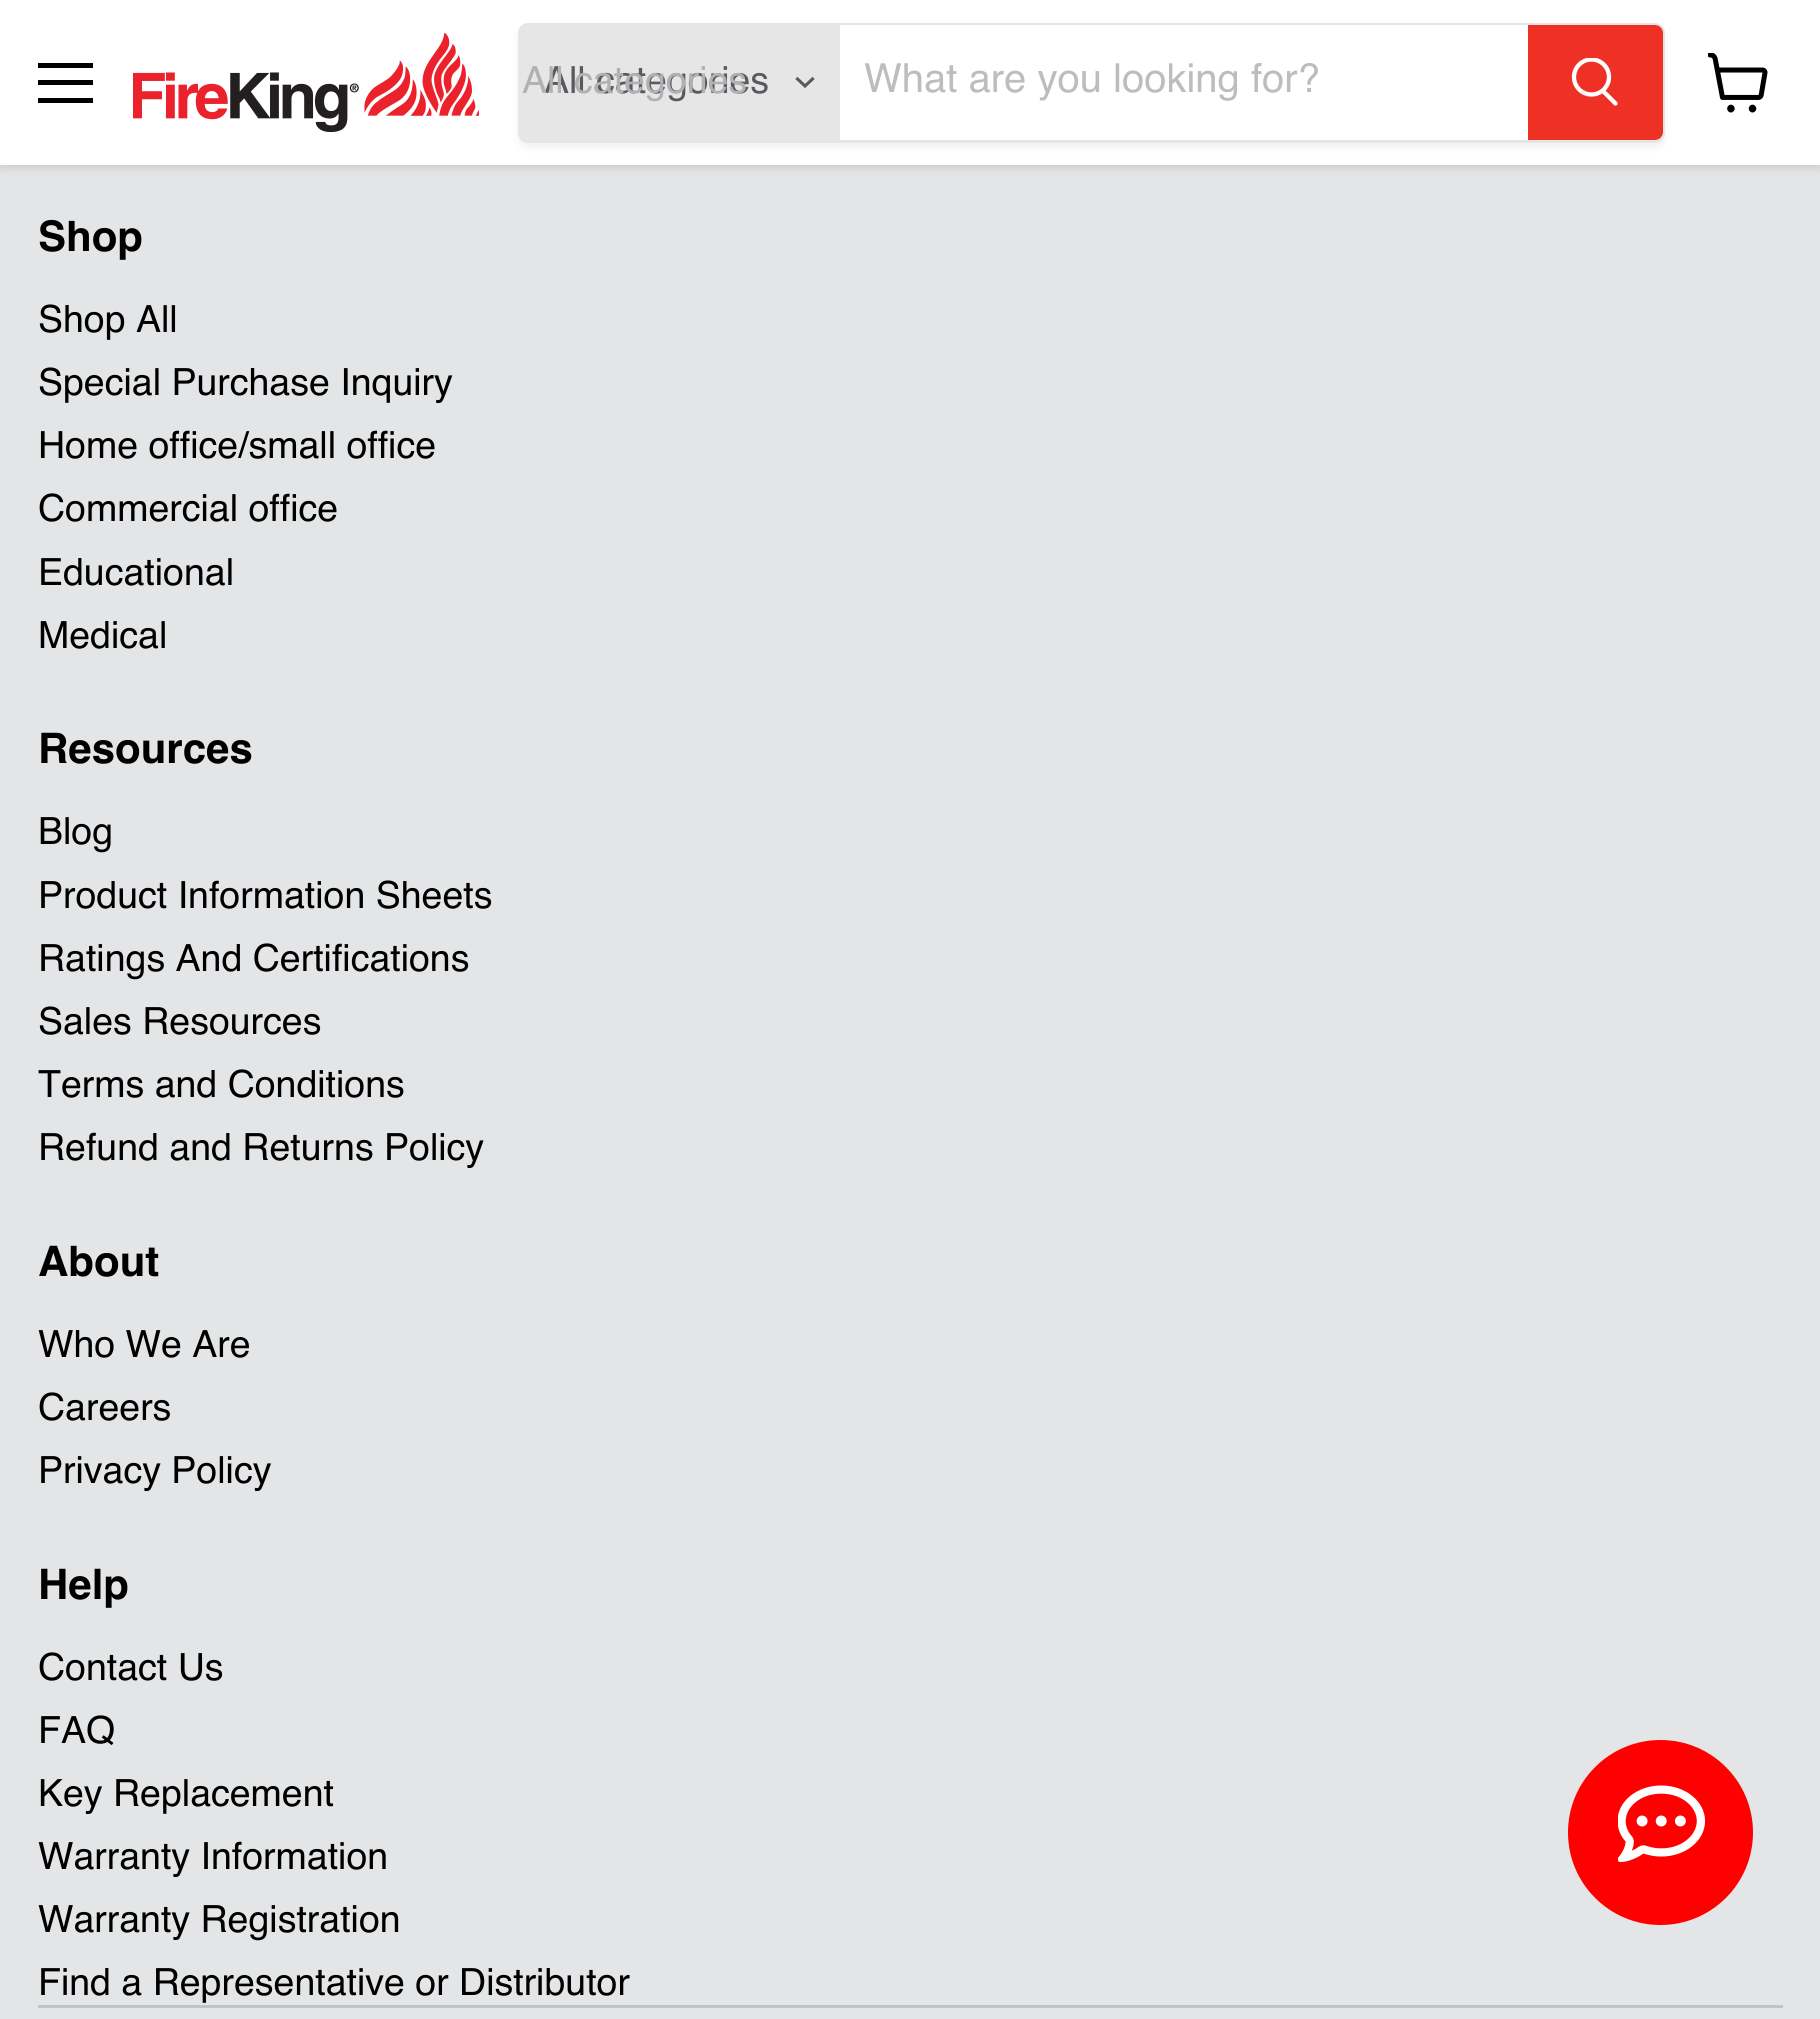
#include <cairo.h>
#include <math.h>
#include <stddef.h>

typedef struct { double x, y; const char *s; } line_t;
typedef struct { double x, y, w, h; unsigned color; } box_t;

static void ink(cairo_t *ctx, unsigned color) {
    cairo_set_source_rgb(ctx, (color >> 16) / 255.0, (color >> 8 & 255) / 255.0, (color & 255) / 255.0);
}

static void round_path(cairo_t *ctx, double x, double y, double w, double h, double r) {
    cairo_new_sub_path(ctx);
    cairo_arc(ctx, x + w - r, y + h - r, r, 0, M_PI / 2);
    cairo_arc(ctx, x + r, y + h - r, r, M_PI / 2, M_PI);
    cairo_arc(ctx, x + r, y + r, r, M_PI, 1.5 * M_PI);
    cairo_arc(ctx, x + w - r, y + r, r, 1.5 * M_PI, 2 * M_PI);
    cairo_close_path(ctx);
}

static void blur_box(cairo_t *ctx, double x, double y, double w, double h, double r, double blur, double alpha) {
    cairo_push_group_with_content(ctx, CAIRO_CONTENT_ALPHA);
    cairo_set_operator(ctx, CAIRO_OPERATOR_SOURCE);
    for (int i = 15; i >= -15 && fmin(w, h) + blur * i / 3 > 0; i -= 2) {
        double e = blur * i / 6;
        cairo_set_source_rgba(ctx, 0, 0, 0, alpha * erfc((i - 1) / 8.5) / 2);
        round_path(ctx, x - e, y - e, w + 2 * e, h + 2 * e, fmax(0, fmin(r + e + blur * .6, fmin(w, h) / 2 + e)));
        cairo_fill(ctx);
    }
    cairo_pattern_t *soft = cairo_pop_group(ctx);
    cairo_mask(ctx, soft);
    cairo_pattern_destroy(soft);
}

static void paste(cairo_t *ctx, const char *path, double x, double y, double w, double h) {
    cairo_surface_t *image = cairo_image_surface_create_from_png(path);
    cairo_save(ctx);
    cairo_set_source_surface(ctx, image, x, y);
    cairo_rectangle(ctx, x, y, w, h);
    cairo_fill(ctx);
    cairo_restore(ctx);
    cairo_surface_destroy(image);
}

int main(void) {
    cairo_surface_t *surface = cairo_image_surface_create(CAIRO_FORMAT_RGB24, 1820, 2019);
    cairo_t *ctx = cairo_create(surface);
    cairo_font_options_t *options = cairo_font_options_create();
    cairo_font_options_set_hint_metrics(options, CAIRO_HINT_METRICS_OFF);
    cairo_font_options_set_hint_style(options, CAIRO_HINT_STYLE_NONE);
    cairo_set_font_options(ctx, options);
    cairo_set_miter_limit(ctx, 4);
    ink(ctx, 0xE4E5E6);
    cairo_paint(ctx);
    ink(ctx, 0x808080);
    blur_box(ctx, 0, 3, 1820, 165, 0, 5, 0.25);
    {
        static const box_t items[] = {
            {0, 0, 1820, 165, 0xFFFFFF},
            {38, 63, 55, 5, 0x000000},
            {38, 80, 55, 5, 0x000000},
            {38, 98, 55, 5, 0x000000},
        };
        for (size_t i = 0; i < sizeof items / sizeof *items; i++) {
            ink(ctx, items[i].color);
            cairo_rectangle(ctx, items[i].x, items[i].y, items[i].w, items[i].h);
            cairo_fill(ctx);
        }
    }
    paste(ctx, "media/1.png", 133, 33, 346, 99);
    cairo_save(ctx);
    cairo_set_fill_rule(ctx, CAIRO_FILL_RULE_EVEN_ODD);
    cairo_new_path(ctx);
    cairo_move_to(ctx, 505, 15);
    cairo_line_to(ctx, 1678, 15);
    cairo_line_to(ctx, 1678, 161);
    cairo_line_to(ctx, 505, 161);
    cairo_close_path(ctx);
    cairo_move_to(ctx, 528, 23);
    cairo_line_to(ctx, 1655, 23);
    cairo_curve_to(ctx, 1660.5, 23, 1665, 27.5, 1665, 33);
    cairo_line_to(ctx, 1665, 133);
    cairo_curve_to(ctx, 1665, 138.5, 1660.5, 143, 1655, 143);
    cairo_line_to(ctx, 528, 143);
    cairo_curve_to(ctx, 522.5, 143, 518, 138.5, 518, 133);
    cairo_line_to(ctx, 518, 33);
    cairo_curve_to(ctx, 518, 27.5, 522.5, 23, 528, 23);
    cairo_close_path(ctx);
    cairo_clip(ctx);
    ink(ctx, 0x808080);
    blur_box(ctx, 518, 28, 1147, 120, 10, 4, 0.11);
    cairo_restore(ctx);
    round_path(ctx, 519.5, 24.5, 1144, 117, 8.5);
    cairo_set_source_rgba(ctx, 0.502, 0.502, 0.502, 0.2);
    cairo_set_line_width(ctx, 3);
    cairo_stroke(ctx);
    ink(ctx, 0xE6E6E6);
    cairo_new_path(ctx);
    cairo_move_to(ctx, 528, 25);
    cairo_line_to(ctx, 840, 25);
    cairo_line_to(ctx, 840, 140);
    cairo_line_to(ctx, 528, 140);
    cairo_curve_to(ctx, 523.5, 140, 520, 136.5, 520, 132);
    cairo_line_to(ctx, 520, 33);
    cairo_curve_to(ctx, 520, 28.5, 523.5, 25, 528, 25);
    cairo_close_path(ctx);
    cairo_fill(ctx);
    cairo_select_font_face(ctx, "Helvetica", CAIRO_FONT_SLANT_NORMAL, CAIRO_FONT_WEIGHT_NORMAL);
    cairo_set_font_size(ctx, 37.5);
    ink(ctx, 0x59595F);
    cairo_move_to(ctx, 544, 93);
    cairo_show_text(ctx, "All categories");
    ink(ctx, 0xB1B1B3);
    cairo_move_to(ctx, 522, 93);
    cairo_show_text(ctx, "All categories");
    cairo_new_path(ctx);
    cairo_move_to(ctx, 805, 86);
    cairo_line_to(ctx, 812.5, 79);
    cairo_move_to(ctx, 805, 86);
    cairo_line_to(ctx, 797.5, 79);
    ink(ctx, 0x59595F);
    cairo_set_line_width(ctx, 3.1);
    cairo_set_line_cap(ctx, CAIRO_LINE_CAP_SQUARE);
    cairo_stroke(ctx);
    ink(ctx, 0xFFFFFF);
    cairo_rectangle(ctx, 840, 25, 688, 1);
    cairo_fill(ctx);
    cairo_set_font_size(ctx, 40);
    ink(ctx, 0xBDBDBF);
    cairo_move_to(ctx, 864, 92);
    cairo_show_text(ctx, "What are you looking for?");
    ink(ctx, 0xEE3124);
    cairo_new_path(ctx);
    cairo_move_to(ctx, 1529.5, 26.5);
    cairo_line_to(ctx, 1655, 26.5);
    cairo_curve_to(ctx, 1658.5, 26.5, 1661.5, 29.5, 1661.5, 33);
    cairo_line_to(ctx, 1661.5, 132);
    cairo_curve_to(ctx, 1661.5, 135.5, 1658.5, 138.5, 1655, 138.5);
    cairo_line_to(ctx, 1529.5, 138.5);
    cairo_close_path(ctx);
    cairo_fill_preserve(ctx);
    cairo_set_line_width(ctx, 3);
    cairo_set_line_cap(ctx, CAIRO_LINE_CAP_BUTT);
    cairo_stroke(ctx);
    cairo_new_path(ctx);
    cairo_move_to(ctx, 1615.5, 103.5);
    cairo_line_to(ctx, 1603.5, 91.5);
    ink(ctx, 0xFFFFFF);
    cairo_set_line_width(ctx, 4.3);
    cairo_set_line_cap(ctx, CAIRO_LINE_CAP_ROUND);
    cairo_stroke(ctx);
    cairo_save(ctx);
    cairo_rectangle(ctx, 1570, 58, 50, 52);
    cairo_clip(ctx);
    cairo_arc(ctx, 1591.5, 77, 17.5, 0, 2 * M_PI);
    cairo_set_line_cap(ctx, CAIRO_LINE_CAP_BUTT);
    cairo_stroke(ctx);
    cairo_restore(ctx);
    paste(ctx, "media/2.png", 1708, 53, 60, 60);
    ink(ctx, 0xC2C3C4);
    cairo_rectangle(ctx, 38, 2005, 1745, 3);
    cairo_fill(ctx);
    cairo_select_font_face(ctx, "Helvetica", CAIRO_FONT_SLANT_NORMAL, CAIRO_FONT_WEIGHT_BOLD);
    cairo_set_font_size(ctx, 42);
    ink(ctx, 0x000000);
    cairo_move_to(ctx, 38, 251);
    cairo_show_text(ctx, "Shop");
    cairo_select_font_face(ctx, "Helvetica", CAIRO_FONT_SLANT_NORMAL, CAIRO_FONT_WEIGHT_NORMAL);
    cairo_set_font_size(ctx, 37.5);
    {
        static const line_t items[] = {
            {38, 332, "Shop All"},
            {38, 395, "Special Purchase Inquiry"},
            {38, 458, "Home office/small office"},
            {38, 521, "Commercial office"},
            {38, 585, "Educational"},
            {38, 648, "Medical"},
        };
        for (size_t i = 0; i < sizeof items / sizeof *items; i++) {
            cairo_move_to(ctx, items[i].x, items[i].y);
            cairo_show_text(ctx, items[i].s);
        }
    }
    cairo_select_font_face(ctx, "Helvetica", CAIRO_FONT_SLANT_NORMAL, CAIRO_FONT_WEIGHT_BOLD);
    cairo_set_font_size(ctx, 42);
    cairo_move_to(ctx, 38, 763);
    cairo_show_text(ctx, "Resources");
    cairo_select_font_face(ctx, "Helvetica", CAIRO_FONT_SLANT_NORMAL, CAIRO_FONT_WEIGHT_NORMAL);
    cairo_set_font_size(ctx, 37.5);
    {
        static const line_t items[] = {
            {38, 844, "Blog"},
            {38, 908, "Product Information Sheets"},
            {38, 971, "Ratings And Certifications"},
            {38, 1034, "Sales Resources"},
            {38, 1097, "Terms and Conditions"},
            {38, 1160, "Refund and Returns Policy"},
        };
        for (size_t i = 0; i < sizeof items / sizeof *items; i++) {
            cairo_move_to(ctx, items[i].x, items[i].y);
            cairo_show_text(ctx, items[i].s);
        }
    }
    cairo_select_font_face(ctx, "Helvetica", CAIRO_FONT_SLANT_NORMAL, CAIRO_FONT_WEIGHT_BOLD);
    cairo_set_font_size(ctx, 42);
    cairo_move_to(ctx, 38, 1276);
    cairo_show_text(ctx, "About");
    cairo_select_font_face(ctx, "Helvetica", CAIRO_FONT_SLANT_NORMAL, CAIRO_FONT_WEIGHT_NORMAL);
    cairo_set_font_size(ctx, 37.5);
    {
        static const line_t items[] = {
            {38, 1357, "Who We Are"},
            {38, 1420, "Careers"},
            {38, 1483, "Privacy Policy"},
        };
        for (size_t i = 0; i < sizeof items / sizeof *items; i++) {
            cairo_move_to(ctx, items[i].x, items[i].y);
            cairo_show_text(ctx, items[i].s);
        }
    }
    cairo_select_font_face(ctx, "Helvetica", CAIRO_FONT_SLANT_NORMAL, CAIRO_FONT_WEIGHT_BOLD);
    cairo_set_font_size(ctx, 42);
    cairo_move_to(ctx, 38, 1599);
    cairo_show_text(ctx, "Help");
    cairo_select_font_face(ctx, "Helvetica", CAIRO_FONT_SLANT_NORMAL, CAIRO_FONT_WEIGHT_NORMAL);
    cairo_set_font_size(ctx, 37.5);
    {
        static const line_t items[] = {
            {38, 1680, "Contact Us"},
            {38, 1743, "FAQ"},
            {38, 1806, "Key Replacement"},
            {38, 1869, "Warranty Information"},
            {38, 1932, "Warranty Registration"},
            {38, 1995, "Find a Representative or Distributor"},
        };
        for (size_t i = 0; i < sizeof items / sizeof *items; i++) {
            cairo_move_to(ctx, items[i].x, items[i].y);
            cairo_show_text(ctx, items[i].s);
        }
    }
    ink(ctx, 0xFF0000);
    cairo_new_path(ctx);
    cairo_arc(ctx, 1660.5, 1832.5, 92.5, 0, 2 * M_PI);
    cairo_fill(ctx);
    paste(ctx, "media/3.png", 1618, 1785, 87, 78);
    cairo_surface_write_to_png(surface, "image.png");
    cairo_font_options_destroy(options);
    cairo_destroy(ctx);
    cairo_surface_destroy(surface);
    return 0;
}
